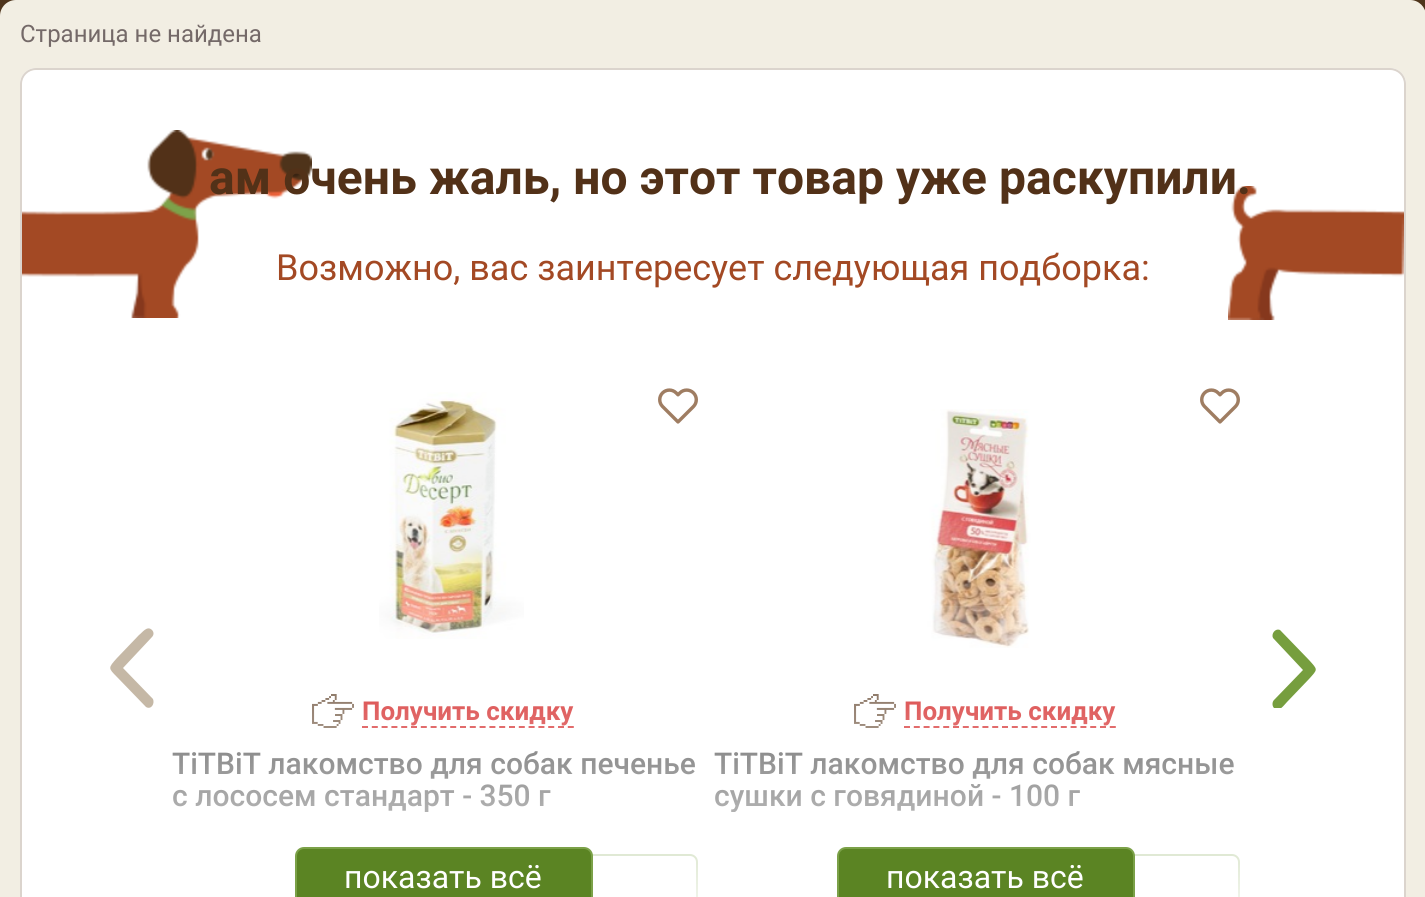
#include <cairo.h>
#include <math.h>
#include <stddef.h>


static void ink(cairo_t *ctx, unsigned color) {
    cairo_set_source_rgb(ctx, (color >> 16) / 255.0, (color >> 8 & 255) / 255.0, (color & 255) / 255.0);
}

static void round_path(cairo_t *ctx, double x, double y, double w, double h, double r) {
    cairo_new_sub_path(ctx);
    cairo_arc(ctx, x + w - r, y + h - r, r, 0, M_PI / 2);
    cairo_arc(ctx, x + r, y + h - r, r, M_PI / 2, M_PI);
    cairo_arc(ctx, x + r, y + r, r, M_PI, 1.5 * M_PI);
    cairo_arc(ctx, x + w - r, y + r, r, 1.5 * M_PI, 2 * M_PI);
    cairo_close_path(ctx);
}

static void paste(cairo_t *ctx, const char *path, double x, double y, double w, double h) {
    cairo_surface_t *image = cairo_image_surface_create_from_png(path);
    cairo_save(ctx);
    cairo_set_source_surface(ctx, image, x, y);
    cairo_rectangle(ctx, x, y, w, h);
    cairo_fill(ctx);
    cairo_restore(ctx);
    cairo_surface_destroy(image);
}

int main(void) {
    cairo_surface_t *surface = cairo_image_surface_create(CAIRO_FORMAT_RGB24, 1425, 897);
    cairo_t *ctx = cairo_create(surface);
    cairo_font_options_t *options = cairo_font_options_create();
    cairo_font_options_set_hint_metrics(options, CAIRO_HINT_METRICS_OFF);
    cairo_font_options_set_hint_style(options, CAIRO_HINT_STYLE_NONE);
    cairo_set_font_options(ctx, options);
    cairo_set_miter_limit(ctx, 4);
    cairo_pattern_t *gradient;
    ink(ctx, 0x4E341B);
    cairo_paint(ctx);
    ink(ctx, 0xF2EEE3);
    round_path(ctx, 0, 0, 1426, 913, 16);
    cairo_fill(ctx);
    cairo_select_font_face(ctx, "Roboto", CAIRO_FONT_SLANT_NORMAL, CAIRO_FONT_WEIGHT_NORMAL);
    cairo_set_font_size(ctx, 24);
    ink(ctx, 0x746968);
    cairo_move_to(ctx, 20, 42);
    cairo_show_text(ctx, "Страница не найдена");
    ink(ctx, 0xFFFFFF);
    round_path(ctx, 20, 68, 1386, 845, 16);
    cairo_fill(ctx);
    paste(ctx, "media/1.png", 22, 130, 1382, 190);
    round_path(ctx, 21, 69, 1384, 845, 15);
    ink(ctx, 0xDBD4CD);
    cairo_stroke(ctx);
    cairo_select_font_face(ctx, "Roboto", CAIRO_FONT_SLANT_NORMAL, CAIRO_FONT_WEIGHT_BOLD);
    cairo_set_font_size(ctx, 48);
    ink(ctx, 0x523118);
    cairo_move_to(ctx, 209, 194);
    cairo_show_text(ctx, "ам очень жаль, но этот товар уже раскупили.");
    cairo_select_font_face(ctx, "Roboto", CAIRO_FONT_SLANT_NORMAL, CAIRO_FONT_WEIGHT_NORMAL);
    cairo_set_font_size(ctx, 36);
    ink(ctx, 0xA34924);
    cairo_move_to(ctx, 276, 280);
    cairo_show_text(ctx, "Возможно, вас заинтересует следующая подборка:");
    ink(ctx, 0xC5B8A6);
    cairo_set_fill_rule(ctx, CAIRO_FILL_RULE_EVEN_ODD);
    cairo_new_path(ctx);
    cairo_move_to(ctx, 152, 630);
    cairo_curve_to(ctx, 147, 625, 142, 633, 139, 635);
    cairo_line_to(ctx, 117, 658);
    cairo_curve_to(ctx, 108, 668, 108, 668, 117, 677);
    cairo_line_to(ctx, 146, 707);
    cairo_curve_to(ctx, 151, 710, 155, 704, 153, 699);
    cairo_line_to(ctx, 123, 668);
    cairo_line_to(ctx, 152, 637);
    cairo_curve_to(ctx, 154, 635, 154, 632, 152, 630);
    cairo_close_path(ctx);
    cairo_fill(ctx);
    cairo_save(ctx);
    cairo_set_fill_rule(ctx, CAIRO_FILL_RULE_WINDING);
    cairo_rectangle(ctx, 1254, 628, 80, 80);
    cairo_clip(ctx);
    ink(ctx, 0x769E3E);
    cairo_set_fill_rule(ctx, CAIRO_FILL_RULE_EVEN_ODD);
    cairo_new_path(ctx);
    cairo_move_to(ctx, 1274, 708);
    cairo_curve_to(ctx, 1279, 713, 1284, 705, 1287, 702);
    cairo_line_to(ctx, 1309, 679);
    cairo_curve_to(ctx, 1318, 669, 1318, 670, 1309, 660);
    cairo_line_to(ctx, 1280, 630);
    cairo_curve_to(ctx, 1275, 628, 1271, 634, 1273, 638);
    cairo_line_to(ctx, 1303, 670);
    cairo_line_to(ctx, 1274, 700);
    cairo_curve_to(ctx, 1272, 702, 1272, 706, 1274, 708);
    cairo_close_path(ctx);
    cairo_fill(ctx);
    cairo_restore(ctx);
    paste(ctx, "media/2.png", 658, 388, 40, 36);
    paste(ctx, "media/3.png", 379, 392, 145, 247);
    paste(ctx, "media/4.png", 312, 694, 42, 34);
    cairo_new_path(ctx);
    cairo_move_to(ctx, 362, 727);
    cairo_line_to(ctx, 574, 727);
    ink(ctx, 0xCC0000);
    cairo_set_dash(ctx, (double[]){6, 3.8}, 2, 0);
    cairo_stroke(ctx);
    cairo_select_font_face(ctx, "Roboto", CAIRO_FONT_SLANT_NORMAL, CAIRO_FONT_WEIGHT_BOLD);
    cairo_set_font_size(ctx, 26);
    cairo_move_to(ctx, 362, 720);
    cairo_show_text(ctx, "Получить скидку");
    cairo_select_font_face(ctx, "Roboto Medium", CAIRO_FONT_SLANT_NORMAL, CAIRO_FONT_WEIGHT_NORMAL);
    cairo_set_font_size(ctx, 30);
    ink(ctx, 0x202020);
    cairo_move_to(ctx, 172, 774);
    cairo_show_text(ctx, "TiTBiT лакомство для собак печенье");
    cairo_save(ctx);
    cairo_set_fill_rule(ctx, CAIRO_FILL_RULE_WINDING);
    cairo_rectangle(ctx, 172, 748, 542, 64);
    cairo_clip(ctx);
    cairo_move_to(ctx, 172, 806);
    cairo_show_text(ctx, "с лососем стандарт - 350 г");
    cairo_restore(ctx);
    round_path(ctx, 453, 855, 244, 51, 7);
    ink(ctx, 0x7BA148);
    cairo_set_dash(ctx, NULL, 0, 0);
    cairo_stroke(ctx);
    gradient = cairo_pattern_create_linear(443, 606, 443, 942);
    cairo_pattern_add_color_stop_rgba(gradient, 0, 1, 1, 1, 0.1);
    cairo_pattern_add_color_stop_rgba(gradient, 1, 1, 1, 1, 1);
    cairo_set_source(ctx, gradient);
    cairo_pattern_destroy(gradient);
    cairo_rectangle(ctx, 172, 606, 526, 291);
    cairo_fill(ctx);
    ink(ctx, 0x5B8423);
    round_path(ctx, 296, 848, 296, 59, 8);
    cairo_fill_preserve(ctx);
    ink(ctx, 0x7BA148);
    cairo_stroke(ctx);
    cairo_select_font_face(ctx, "Roboto", CAIRO_FONT_SLANT_NORMAL, CAIRO_FONT_WEIGHT_NORMAL);
    cairo_set_font_size(ctx, 32);
    ink(ctx, 0xFFFFFF);
    cairo_move_to(ctx, 344, 888);
    cairo_show_text(ctx, "показать всё");
    paste(ctx, "media/2.png", 1200, 388, 40, 36);
    paste(ctx, "media/5.png", 927, 409, 118, 239);
    paste(ctx, "media/4.png", 854, 694, 42, 34);
    cairo_new_path(ctx);
    cairo_move_to(ctx, 904, 727);
    cairo_line_to(ctx, 1116, 727);
    ink(ctx, 0xCC0000);
    cairo_set_dash(ctx, (double[]){6, 3.8}, 2, 0);
    cairo_stroke(ctx);
    cairo_select_font_face(ctx, "Roboto", CAIRO_FONT_SLANT_NORMAL, CAIRO_FONT_WEIGHT_BOLD);
    cairo_set_font_size(ctx, 26);
    cairo_move_to(ctx, 904, 720);
    cairo_show_text(ctx, "Получить скидку");
    cairo_select_font_face(ctx, "Roboto Medium", CAIRO_FONT_SLANT_NORMAL, CAIRO_FONT_WEIGHT_NORMAL);
    cairo_set_font_size(ctx, 30);
    ink(ctx, 0x202020);
    cairo_move_to(ctx, 714, 774);
    cairo_show_text(ctx, "TiTBiT лакомство для собак мясные");
    cairo_save(ctx);
    cairo_set_fill_rule(ctx, CAIRO_FILL_RULE_WINDING);
    cairo_rectangle(ctx, 714, 748, 540, 64);
    cairo_clip(ctx);
    cairo_move_to(ctx, 714, 806);
    cairo_show_text(ctx, "сушки с говядиной - 100 г");
    cairo_restore(ctx);
    round_path(ctx, 995, 855, 244, 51, 7);
    ink(ctx, 0x7BA148);
    cairo_set_dash(ctx, NULL, 0, 0);
    cairo_stroke(ctx);
    gradient = cairo_pattern_create_linear(985, 606, 985, 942);
    cairo_pattern_add_color_stop_rgba(gradient, 0, 1, 1, 1, 0.1);
    cairo_pattern_add_color_stop_rgba(gradient, 1, 1, 1, 1, 1);
    cairo_set_source(ctx, gradient);
    cairo_pattern_destroy(gradient);
    cairo_rectangle(ctx, 714, 606, 526, 291);
    cairo_fill(ctx);
    ink(ctx, 0x5B8423);
    round_path(ctx, 838, 848, 296, 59, 8);
    cairo_fill_preserve(ctx);
    ink(ctx, 0x7BA148);
    cairo_stroke(ctx);
    cairo_select_font_face(ctx, "Roboto", CAIRO_FONT_SLANT_NORMAL, CAIRO_FONT_WEIGHT_NORMAL);
    cairo_set_font_size(ctx, 32);
    ink(ctx, 0xFFFFFF);
    cairo_move_to(ctx, 886, 888);
    cairo_show_text(ctx, "показать всё");
    cairo_surface_write_to_png(surface, "image.png");
    cairo_font_options_destroy(options);
    cairo_destroy(ctx);
    cairo_surface_destroy(surface);
    return 0;
}
